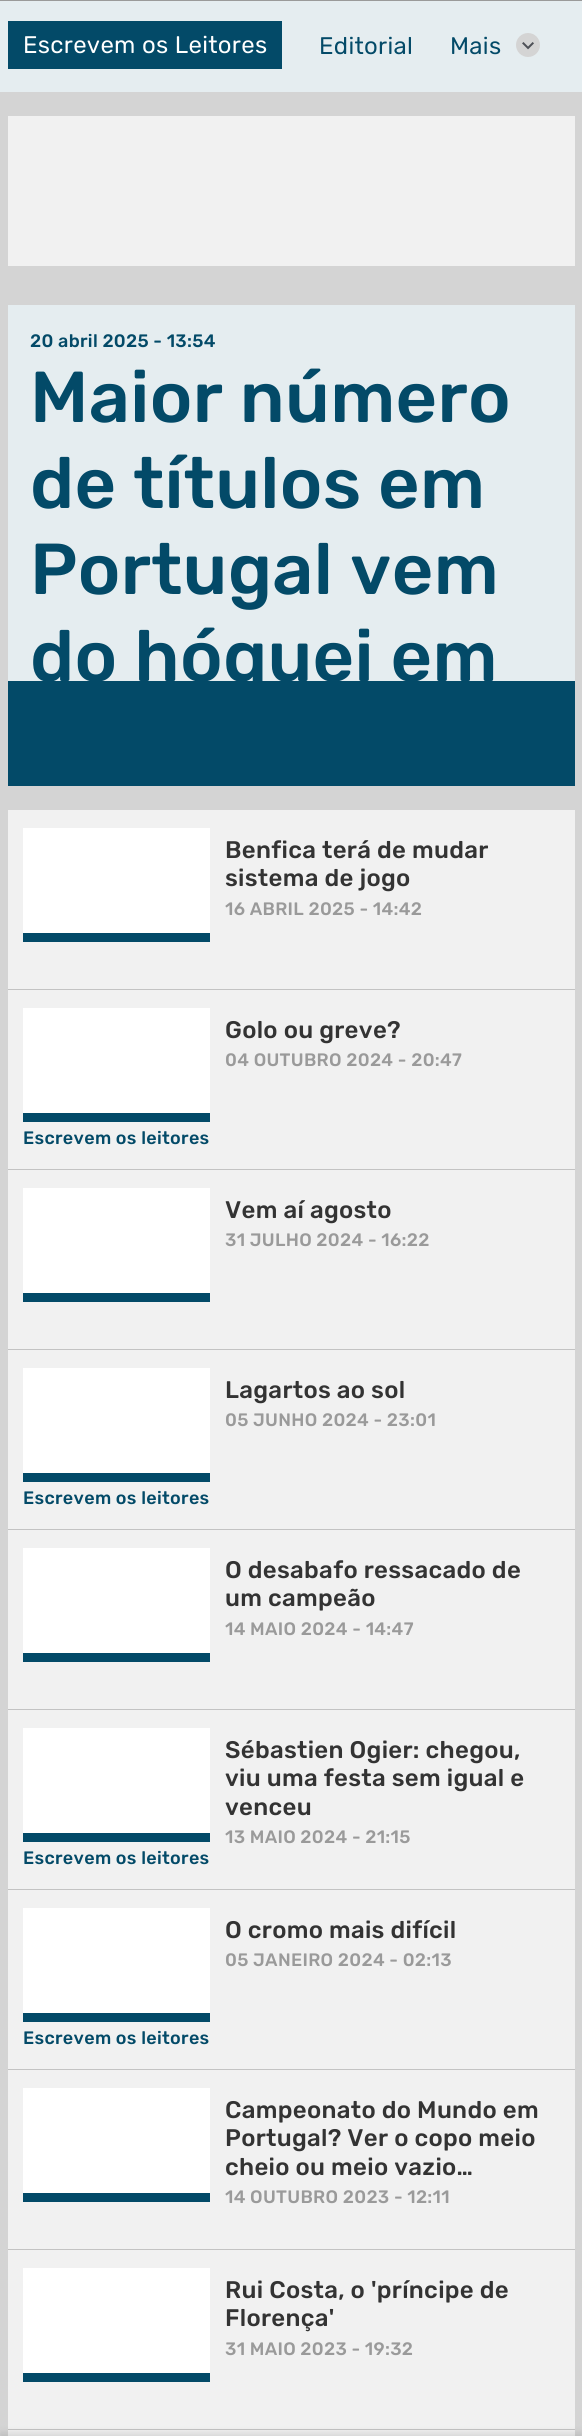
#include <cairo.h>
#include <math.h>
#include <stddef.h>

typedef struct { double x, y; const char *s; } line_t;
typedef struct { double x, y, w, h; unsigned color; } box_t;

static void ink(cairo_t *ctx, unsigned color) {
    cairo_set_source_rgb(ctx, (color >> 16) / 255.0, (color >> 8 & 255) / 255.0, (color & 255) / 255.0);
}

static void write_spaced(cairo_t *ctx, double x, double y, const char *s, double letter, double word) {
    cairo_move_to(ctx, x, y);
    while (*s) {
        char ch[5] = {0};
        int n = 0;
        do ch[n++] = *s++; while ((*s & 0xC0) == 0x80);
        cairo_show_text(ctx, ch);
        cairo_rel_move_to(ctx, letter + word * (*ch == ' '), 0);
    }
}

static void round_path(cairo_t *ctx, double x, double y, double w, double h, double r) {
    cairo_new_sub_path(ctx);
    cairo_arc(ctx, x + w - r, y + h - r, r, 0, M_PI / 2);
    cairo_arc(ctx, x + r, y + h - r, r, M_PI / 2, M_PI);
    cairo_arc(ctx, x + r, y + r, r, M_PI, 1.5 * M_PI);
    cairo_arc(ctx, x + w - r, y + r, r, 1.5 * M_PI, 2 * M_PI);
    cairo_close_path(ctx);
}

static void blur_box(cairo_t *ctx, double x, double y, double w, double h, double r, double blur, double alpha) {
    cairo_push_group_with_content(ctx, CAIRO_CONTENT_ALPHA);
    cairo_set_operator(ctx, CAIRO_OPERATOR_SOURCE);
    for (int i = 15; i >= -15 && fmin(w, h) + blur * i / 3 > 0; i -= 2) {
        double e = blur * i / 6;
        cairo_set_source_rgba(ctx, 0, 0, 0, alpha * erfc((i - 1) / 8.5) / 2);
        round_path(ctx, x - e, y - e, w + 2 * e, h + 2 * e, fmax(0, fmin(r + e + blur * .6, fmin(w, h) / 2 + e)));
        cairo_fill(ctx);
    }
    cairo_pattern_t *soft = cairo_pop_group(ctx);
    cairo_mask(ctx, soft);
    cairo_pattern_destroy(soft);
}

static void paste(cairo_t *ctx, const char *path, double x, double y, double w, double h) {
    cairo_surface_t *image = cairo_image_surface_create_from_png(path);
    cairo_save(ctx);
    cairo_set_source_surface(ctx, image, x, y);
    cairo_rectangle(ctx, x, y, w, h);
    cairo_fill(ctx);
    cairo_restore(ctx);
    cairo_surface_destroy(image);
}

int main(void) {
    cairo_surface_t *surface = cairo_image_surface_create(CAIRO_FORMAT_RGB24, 582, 2436);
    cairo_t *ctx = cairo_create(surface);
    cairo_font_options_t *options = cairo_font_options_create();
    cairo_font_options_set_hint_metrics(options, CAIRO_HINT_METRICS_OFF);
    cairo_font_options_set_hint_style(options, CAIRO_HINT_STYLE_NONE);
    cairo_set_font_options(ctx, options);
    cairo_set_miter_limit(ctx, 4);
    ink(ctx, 0xD4D4D4);
    cairo_paint(ctx);
    {
        static const box_t items[] = {
            {0, 0, 582, 1, 0x9A9A9A},
            {0, 1, 582, 91, 0xE5EDF0},
            {8, 21, 274, 48, 0x034A68},
        };
        for (size_t i = 0; i < sizeof items / sizeof *items; i++) {
            ink(ctx, items[i].color);
            cairo_rectangle(ctx, items[i].x, items[i].y, items[i].w, items[i].h);
            cairo_fill(ctx);
        }
    }
    cairo_select_font_face(ctx, "Rubik", CAIRO_FONT_SLANT_NORMAL, CAIRO_FONT_WEIGHT_NORMAL);
    cairo_set_font_size(ctx, 24);
    ink(ctx, 0xFFFFFF);
    write_spaced(ctx, 23, 53, "Escrevem os Leitores", 0.3, 0);
    ink(ctx, 0x034A68);
    write_spaced(ctx, 319, 54, "Editorial", 0.3, 0);
    write_spaced(ctx, 450, 54, "Mais", 0.3, 0);
    ink(ctx, 0xD4D4D4);
    cairo_new_path(ctx);
    cairo_arc(ctx, 528, 45, 12, 0, 2 * M_PI);
    cairo_fill(ctx);
    paste(ctx, "media/1.png", 522, 42, 12, 8);
    ink(ctx, 0xF1F1F1);
    cairo_rectangle(ctx, 8, 116, 567, 150);
    cairo_fill(ctx);
    ink(ctx, 0xE5EDF0);
    cairo_rectangle(ctx, 8, 305, 567, 376);
    cairo_fill(ctx);
    cairo_select_font_face(ctx, "Rubik Medium", CAIRO_FONT_SLANT_NORMAL, CAIRO_FONT_WEIGHT_NORMAL);
    cairo_set_font_size(ctx, 18);
    ink(ctx, 0x034A68);
    write_spaced(ctx, 30, 347, "20 abril 2025 - 13:54", 0.3, 0);
    cairo_set_font_size(ctx, 72);
    {
        static const line_t items[] = {
            {30, 422, "Maior número"},
            {30, 508, "de títulos em"},
            {30, 594, "Portugal vem"},
        };
        for (size_t i = 0; i < sizeof items / sizeof *items; i++) {
            write_spaced(ctx, items[i].x, items[i].y, items[i].s, 0.3, 0);
        }
    }
    cairo_rectangle(ctx, 8, 681, 567, 105);
    cairo_fill(ctx);
    write_spaced(ctx, 30, 681, "do hóquei em", 0.3, 0);
    {
        static const box_t items[] = {
            {8, 810, 567, 179, 0xF1F1F1},
            {8, 989, 567, 1, 0xC3C3C3},
            {23, 828, 187, 105, 0xFFFFFF},
            {23, 933, 187, 9, 0x034A68},
        };
        for (size_t i = 0; i < sizeof items / sizeof *items; i++) {
            ink(ctx, items[i].color);
            cairo_rectangle(ctx, items[i].x, items[i].y, items[i].w, items[i].h);
            cairo_fill(ctx);
        }
    }
    cairo_set_font_size(ctx, 24);
    ink(ctx, 0x333333);
    write_spaced(ctx, 225, 858, "Benfica terá de mudar", 0.3, 0);
    write_spaced(ctx, 225, 886, "sistema de jogo", 0.3, 0);
    cairo_set_font_size(ctx, 18);
    ink(ctx, 0x9A9A9A);
    write_spaced(ctx, 225, 915, "16 ABRIL 2025 - 14:42", 0.3, 0);
    ink(ctx, 0xF1F1F1);
    cairo_rectangle(ctx, 8, 990, 567, 179);
    cairo_fill(ctx);
    ink(ctx, 0xC3C3C3);
    cairo_rectangle(ctx, 8, 1169, 567, 1);
    cairo_fill(ctx);
    cairo_set_font_size(ctx, 24);
    ink(ctx, 0x333333);
    write_spaced(ctx, 225, 1038, "Golo ou greve?", 0.3, 0);
    cairo_set_font_size(ctx, 18);
    ink(ctx, 0x9A9A9A);
    write_spaced(ctx, 225, 1066, "04 OUTUBRO 2024 - 20:47", 0.3, 0);
    ink(ctx, 0xFFFFFF);
    cairo_rectangle(ctx, 23, 1008, 187, 105);
    cairo_fill(ctx);
    ink(ctx, 0x034A68);
    cairo_rectangle(ctx, 23, 1113, 187, 9);
    cairo_fill(ctx);
    write_spaced(ctx, 23, 1144, "Escrevem os leitores", 0.3, 0);
    {
        static const box_t items[] = {
            {8, 1170, 567, 179, 0xF1F1F1},
            {8, 1349, 567, 1, 0xC3C3C3},
            {23, 1188, 187, 105, 0xFFFFFF},
            {23, 1293, 187, 9, 0x034A68},
        };
        for (size_t i = 0; i < sizeof items / sizeof *items; i++) {
            ink(ctx, items[i].color);
            cairo_rectangle(ctx, items[i].x, items[i].y, items[i].w, items[i].h);
            cairo_fill(ctx);
        }
    }
    cairo_set_font_size(ctx, 24);
    ink(ctx, 0x333333);
    write_spaced(ctx, 225, 1218, "Vem aí agosto", 0.3, 0);
    cairo_set_font_size(ctx, 18);
    ink(ctx, 0x9A9A9A);
    write_spaced(ctx, 225, 1246, "31 JULHO 2024 - 16:22", 0.3, 0);
    ink(ctx, 0xF1F1F1);
    cairo_rectangle(ctx, 8, 1350, 567, 179);
    cairo_fill(ctx);
    ink(ctx, 0xC3C3C3);
    cairo_rectangle(ctx, 8, 1529, 567, 1);
    cairo_fill(ctx);
    cairo_set_font_size(ctx, 24);
    ink(ctx, 0x333333);
    write_spaced(ctx, 225, 1398, "Lagartos ao sol", 0.3, 0);
    cairo_set_font_size(ctx, 18);
    ink(ctx, 0x9A9A9A);
    write_spaced(ctx, 225, 1426, "05 JUNHO 2024 - 23:01", 0.3, 0);
    ink(ctx, 0xFFFFFF);
    cairo_rectangle(ctx, 23, 1368, 187, 105);
    cairo_fill(ctx);
    ink(ctx, 0x034A68);
    cairo_rectangle(ctx, 23, 1473, 187, 9);
    cairo_fill(ctx);
    write_spaced(ctx, 23, 1504, "Escrevem os leitores", 0.3, 0);
    {
        static const box_t items[] = {
            {8, 1530, 567, 179, 0xF1F1F1},
            {8, 1709, 567, 1, 0xC3C3C3},
            {23, 1548, 187, 105, 0xFFFFFF},
            {23, 1653, 187, 9, 0x034A68},
        };
        for (size_t i = 0; i < sizeof items / sizeof *items; i++) {
            ink(ctx, items[i].color);
            cairo_rectangle(ctx, items[i].x, items[i].y, items[i].w, items[i].h);
            cairo_fill(ctx);
        }
    }
    cairo_set_font_size(ctx, 24);
    ink(ctx, 0x333333);
    write_spaced(ctx, 225, 1578, "O desabafo ressacado de", 0.3, 0);
    write_spaced(ctx, 225, 1606, "um campeão", 0.3, 0);
    cairo_set_font_size(ctx, 18);
    ink(ctx, 0x9A9A9A);
    write_spaced(ctx, 225, 1635, "14 MAIO 2024 - 14:47", 0.3, 0);
    ink(ctx, 0xF1F1F1);
    cairo_rectangle(ctx, 8, 1710, 567, 179);
    cairo_fill(ctx);
    ink(ctx, 0xC3C3C3);
    cairo_rectangle(ctx, 8, 1889, 567, 1);
    cairo_fill(ctx);
    cairo_set_font_size(ctx, 24);
    ink(ctx, 0x333333);
    {
        static const line_t items[] = {
            {225, 1758, "Sébastien Ogier: chegou,"},
            {225, 1786, "viu uma festa sem igual e"},
            {225, 1815, "venceu"},
        };
        for (size_t i = 0; i < sizeof items / sizeof *items; i++) {
            write_spaced(ctx, items[i].x, items[i].y, items[i].s, 0.3, 0);
        }
    }
    cairo_set_font_size(ctx, 18);
    ink(ctx, 0x9A9A9A);
    write_spaced(ctx, 225, 1843, "13 MAIO 2024 - 21:15", 0.3, 0);
    ink(ctx, 0xFFFFFF);
    cairo_rectangle(ctx, 23, 1728, 187, 105);
    cairo_fill(ctx);
    ink(ctx, 0x034A68);
    cairo_rectangle(ctx, 23, 1833, 187, 9);
    cairo_fill(ctx);
    write_spaced(ctx, 23, 1864, "Escrevem os leitores", 0.3, 0);
    ink(ctx, 0xF1F1F1);
    cairo_rectangle(ctx, 8, 1890, 567, 179);
    cairo_fill(ctx);
    ink(ctx, 0xC3C3C3);
    cairo_rectangle(ctx, 8, 2069, 567, 1);
    cairo_fill(ctx);
    cairo_set_font_size(ctx, 24);
    ink(ctx, 0x333333);
    write_spaced(ctx, 225, 1938, "O cromo mais difícil", 0.3, 0);
    cairo_set_font_size(ctx, 18);
    ink(ctx, 0x9A9A9A);
    write_spaced(ctx, 225, 1966, "05 JANEIRO 2024 - 02:13", 0.3, 0);
    ink(ctx, 0xFFFFFF);
    cairo_rectangle(ctx, 23, 1908, 187, 105);
    cairo_fill(ctx);
    ink(ctx, 0x034A68);
    cairo_rectangle(ctx, 23, 2013, 187, 9);
    cairo_fill(ctx);
    write_spaced(ctx, 23, 2044, "Escrevem os leitores", 0.3, 0);
    {
        static const box_t items[] = {
            {8, 2070, 567, 179, 0xF1F1F1},
            {8, 2249, 567, 1, 0xC3C3C3},
            {23, 2088, 187, 105, 0xFFFFFF},
            {23, 2193, 187, 9, 0x034A68},
        };
        for (size_t i = 0; i < sizeof items / sizeof *items; i++) {
            ink(ctx, items[i].color);
            cairo_rectangle(ctx, items[i].x, items[i].y, items[i].w, items[i].h);
            cairo_fill(ctx);
        }
    }
    cairo_set_font_size(ctx, 24);
    ink(ctx, 0x333333);
    {
        static const line_t items[] = {
            {225, 2118, "Campeonato do Mundo em"},
            {225, 2146, "Portugal? Ver o copo meio"},
            {225, 2175, "cheio ou meio vazio…"},
        };
        for (size_t i = 0; i < sizeof items / sizeof *items; i++) {
            write_spaced(ctx, items[i].x, items[i].y, items[i].s, 0.3, 0);
        }
    }
    cairo_set_font_size(ctx, 18);
    ink(ctx, 0x9A9A9A);
    write_spaced(ctx, 225, 2203, "14 OUTUBRO 2023 - 12:11", 0.3, 0);
    {
        static const box_t items[] = {
            {8, 2250, 567, 179, 0xF1F1F1},
            {8, 2429, 567, 1, 0xC3C3C3},
            {23, 2268, 187, 105, 0xFFFFFF},
            {23, 2373, 187, 9, 0x034A68},
        };
        for (size_t i = 0; i < sizeof items / sizeof *items; i++) {
            ink(ctx, items[i].color);
            cairo_rectangle(ctx, items[i].x, items[i].y, items[i].w, items[i].h);
            cairo_fill(ctx);
        }
    }
    cairo_set_font_size(ctx, 24);
    ink(ctx, 0x333333);
    write_spaced(ctx, 225, 2298, "Rui Costa, o 'príncipe de", 0.3, 0);
    write_spaced(ctx, 225, 2326, "Florença'", 0.3, 0);
    cairo_set_font_size(ctx, 18);
    ink(ctx, 0x9A9A9A);
    write_spaced(ctx, 225, 2355, "31 MAIO 2023 - 19:32", 0.3, 0);
    ink(ctx, 0xF1F1F1);
    cairo_rectangle(ctx, 8, 2430, 567, 6);
    cairo_fill(ctx);
    ink(ctx, 0x000000);
    blur_box(ctx, 0, 2433, 582, 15, 0, 4, 0.12);
    cairo_surface_write_to_png(surface, "image.png");
    cairo_font_options_destroy(options);
    cairo_destroy(ctx);
    cairo_surface_destroy(surface);
    return 0;
}
